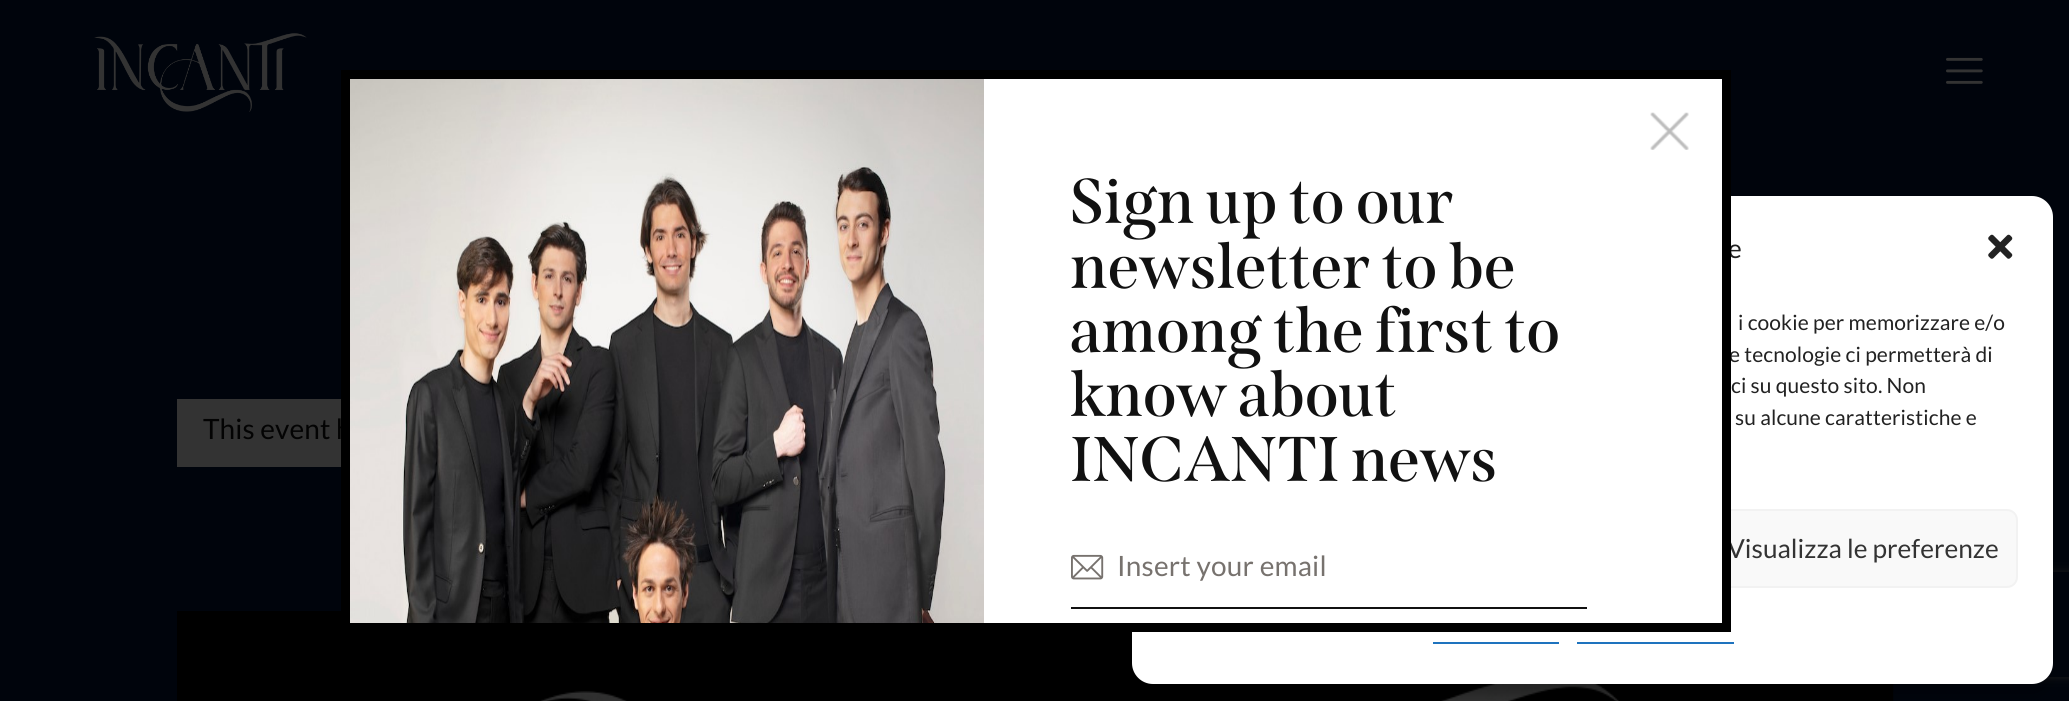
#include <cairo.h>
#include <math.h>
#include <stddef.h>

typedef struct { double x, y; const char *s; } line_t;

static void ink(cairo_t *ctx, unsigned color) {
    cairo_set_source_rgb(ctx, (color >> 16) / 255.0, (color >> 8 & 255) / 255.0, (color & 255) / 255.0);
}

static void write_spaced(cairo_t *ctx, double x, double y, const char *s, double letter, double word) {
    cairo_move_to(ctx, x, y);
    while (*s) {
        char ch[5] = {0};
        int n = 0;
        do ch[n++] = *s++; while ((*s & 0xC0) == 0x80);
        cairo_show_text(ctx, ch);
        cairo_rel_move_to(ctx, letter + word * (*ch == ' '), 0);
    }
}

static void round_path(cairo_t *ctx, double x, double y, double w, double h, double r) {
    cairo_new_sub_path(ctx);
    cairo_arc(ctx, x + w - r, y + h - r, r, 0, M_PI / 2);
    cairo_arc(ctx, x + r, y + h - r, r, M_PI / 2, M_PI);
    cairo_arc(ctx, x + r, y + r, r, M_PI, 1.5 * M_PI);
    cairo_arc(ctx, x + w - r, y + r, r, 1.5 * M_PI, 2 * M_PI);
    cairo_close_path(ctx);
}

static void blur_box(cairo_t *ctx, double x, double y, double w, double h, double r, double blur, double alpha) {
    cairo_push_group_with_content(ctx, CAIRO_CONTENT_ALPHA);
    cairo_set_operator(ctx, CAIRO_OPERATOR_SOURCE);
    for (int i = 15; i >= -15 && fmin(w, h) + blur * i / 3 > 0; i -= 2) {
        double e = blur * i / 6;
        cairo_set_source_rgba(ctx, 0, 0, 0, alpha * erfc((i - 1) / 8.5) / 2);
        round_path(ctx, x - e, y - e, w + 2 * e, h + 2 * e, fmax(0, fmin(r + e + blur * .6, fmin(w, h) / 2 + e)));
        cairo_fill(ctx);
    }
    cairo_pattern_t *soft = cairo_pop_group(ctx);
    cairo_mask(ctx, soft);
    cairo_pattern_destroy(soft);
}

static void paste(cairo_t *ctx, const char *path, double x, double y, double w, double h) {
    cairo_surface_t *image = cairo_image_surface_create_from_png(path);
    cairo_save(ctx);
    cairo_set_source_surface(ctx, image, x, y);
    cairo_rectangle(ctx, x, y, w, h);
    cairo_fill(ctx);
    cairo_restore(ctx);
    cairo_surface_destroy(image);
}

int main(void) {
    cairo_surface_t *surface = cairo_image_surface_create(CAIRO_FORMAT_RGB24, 2069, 701);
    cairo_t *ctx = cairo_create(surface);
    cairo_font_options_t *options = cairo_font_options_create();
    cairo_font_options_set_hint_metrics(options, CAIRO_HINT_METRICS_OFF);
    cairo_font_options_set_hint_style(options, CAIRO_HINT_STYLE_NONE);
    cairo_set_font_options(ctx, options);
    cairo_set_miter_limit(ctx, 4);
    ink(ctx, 0x00040C);
    cairo_paint(ctx);
    paste(ctx, "media/1.png", 94, 33, 213, 79);
    paste(ctx, "media/2.png", 1946, 57, 37, 27);
    ink(ctx, 0x333333);
    cairo_rectangle(ctx, 177, 399, 164, 68);
    cairo_fill(ctx);
    cairo_select_font_face(ctx, "Lato", CAIRO_FONT_SLANT_NORMAL, CAIRO_FONT_WEIGHT_NORMAL);
    cairo_set_font_size(ctx, 28);
    ink(ctx, 0x030303);
    write_spaced(ctx, 203, 439, "This event h", 0.1, 0);
    paste(ctx, "media/3.png", 177, 611, 1717, 90);
    ink(ctx, 0x000000);
    blur_box(ctx, 1132, 207, 921, 488, 21, 5, 0.23);
    cairo_save(ctx);
    cairo_set_fill_rule(ctx, CAIRO_FILL_RULE_EVEN_ODD);
    cairo_new_path(ctx);
    cairo_move_to(ctx, 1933, 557);
    cairo_line_to(ctx, 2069, 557);
    cairo_line_to(ctx, 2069, 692);
    cairo_line_to(ctx, 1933, 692);
    cairo_close_path(ctx);
    cairo_move_to(ctx, 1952, 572);
    cairo_line_to(ctx, 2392, 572);
    cairo_curve_to(ctx, 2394, 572, 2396, 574, 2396, 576);
    cairo_line_to(ctx, 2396, 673);
    cairo_curve_to(ctx, 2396, 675, 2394, 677, 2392, 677);
    cairo_line_to(ctx, 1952, 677);
    cairo_curve_to(ctx, 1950, 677, 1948, 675, 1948, 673);
    cairo_line_to(ctx, 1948, 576);
    cairo_curve_to(ctx, 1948, 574, 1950, 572, 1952, 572);
    cairo_close_path(ctx);
    cairo_clip(ctx);
    ink(ctx, 0x1A1A1A);
    blur_box(ctx, 1948, 572, 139, 105, 4, 4.5, 1);
    cairo_restore(ctx);
    ink(ctx, 0xFFFFFF);
    round_path(ctx, 1132, 196, 921, 488, 21);
    cairo_fill(ctx);
    ink(ctx, 0xF9F9F9);
    round_path(ctx, 1709, 510, 308, 77, 10);
    cairo_fill_preserve(ctx);
    ink(ctx, 0xF2F2F2);
    cairo_stroke(ctx);
    ink(ctx, 0xFFFFFF);
    cairo_rectangle(ctx, 984, 79, 738, 544);
    cairo_fill(ctx);
    cairo_set_font_size(ctx, 26.25);
    ink(ctx, 0x222222);
    write_spaced(ctx, 1728, 258, "e", 0.1, 0);
    cairo_set_font_size(ctx, 21);
    write_spaced(ctx, 1729, 362, "e tecnologie ci permetterà di", 0.1, 0);
    cairo_set_font_size(ctx, 26.25);
    ink(ctx, 0x333333);
    cairo_move_to(ctx, 1727, 558);
    cairo_show_text(ctx, "Visualizza le preferenze");
    cairo_rectangle(ctx, 345.5, 74.5, 1381, 553);
    ink(ctx, 0x000000);
    cairo_set_line_width(ctx, 9);
    cairo_stroke(ctx);
    paste(ctx, "media/4.png", 1650, 112, 39, 38);
    paste(ctx, "media/5.png", 350, 79, 634, 544);
    cairo_select_font_face(ctx, "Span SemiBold", CAIRO_FONT_SLANT_NORMAL, CAIRO_FONT_WEIGHT_NORMAL);
    cairo_set_font_size(ctx, 63);
    ink(ctx, 0x111111);
    {
        static const line_t items[] = {
            {1070, 223, "Sign up to our"},
            {1070, 288, "newsletter to be"},
            {1070, 352, "among the first to"},
            {1070, 416, "know about"},
            {1070, 481, "INCANTI news"},
        };
        for (size_t i = 0; i < sizeof items / sizeof *items; i++) {
            write_spaced(ctx, items[i].x, items[i].y, items[i].s, -0.2, 0);
        }
    }
    paste(ctx, "media/6.png", 1071, 554, 33, 26);
    cairo_rectangle(ctx, 1071, 607, 516, 2);
    cairo_fill(ctx);
    cairo_select_font_face(ctx, "Lato", CAIRO_FONT_SLANT_NORMAL, CAIRO_FONT_WEIGHT_NORMAL);
    cairo_set_font_size(ctx, 28);
    ink(ctx, 0x77726E);
    write_spaced(ctx, 1117, 576, "Insert your email", 0.2, 0);
    paste(ctx, "media/7.png", 1988, 234, 25, 25);
    cairo_set_font_size(ctx, 21);
    ink(ctx, 0x222222);
    {
        static const line_t items[] = {
            {1738, 330, "i cookie per memorizzare e/o"},
            {1731, 393, "ci su questo sito. Non"},
            {1735, 425, "su alcune caratteristiche e"},
        };
        for (size_t i = 0; i < sizeof items / sizeof *items; i++) {
            write_spaced(ctx, items[i].x, items[i].y, items[i].s, 0.1, 0);
        }
    }
    ink(ctx, 0x1E73BE);
    cairo_rectangle(ctx, 1433, 642, 126, 2);
    cairo_fill(ctx);
    cairo_rectangle(ctx, 1577, 642, 157, 2);
    cairo_fill(ctx);
    cairo_surface_write_to_png(surface, "image.png");
    cairo_font_options_destroy(options);
    cairo_destroy(ctx);
    cairo_surface_destroy(surface);
    return 0;
}
